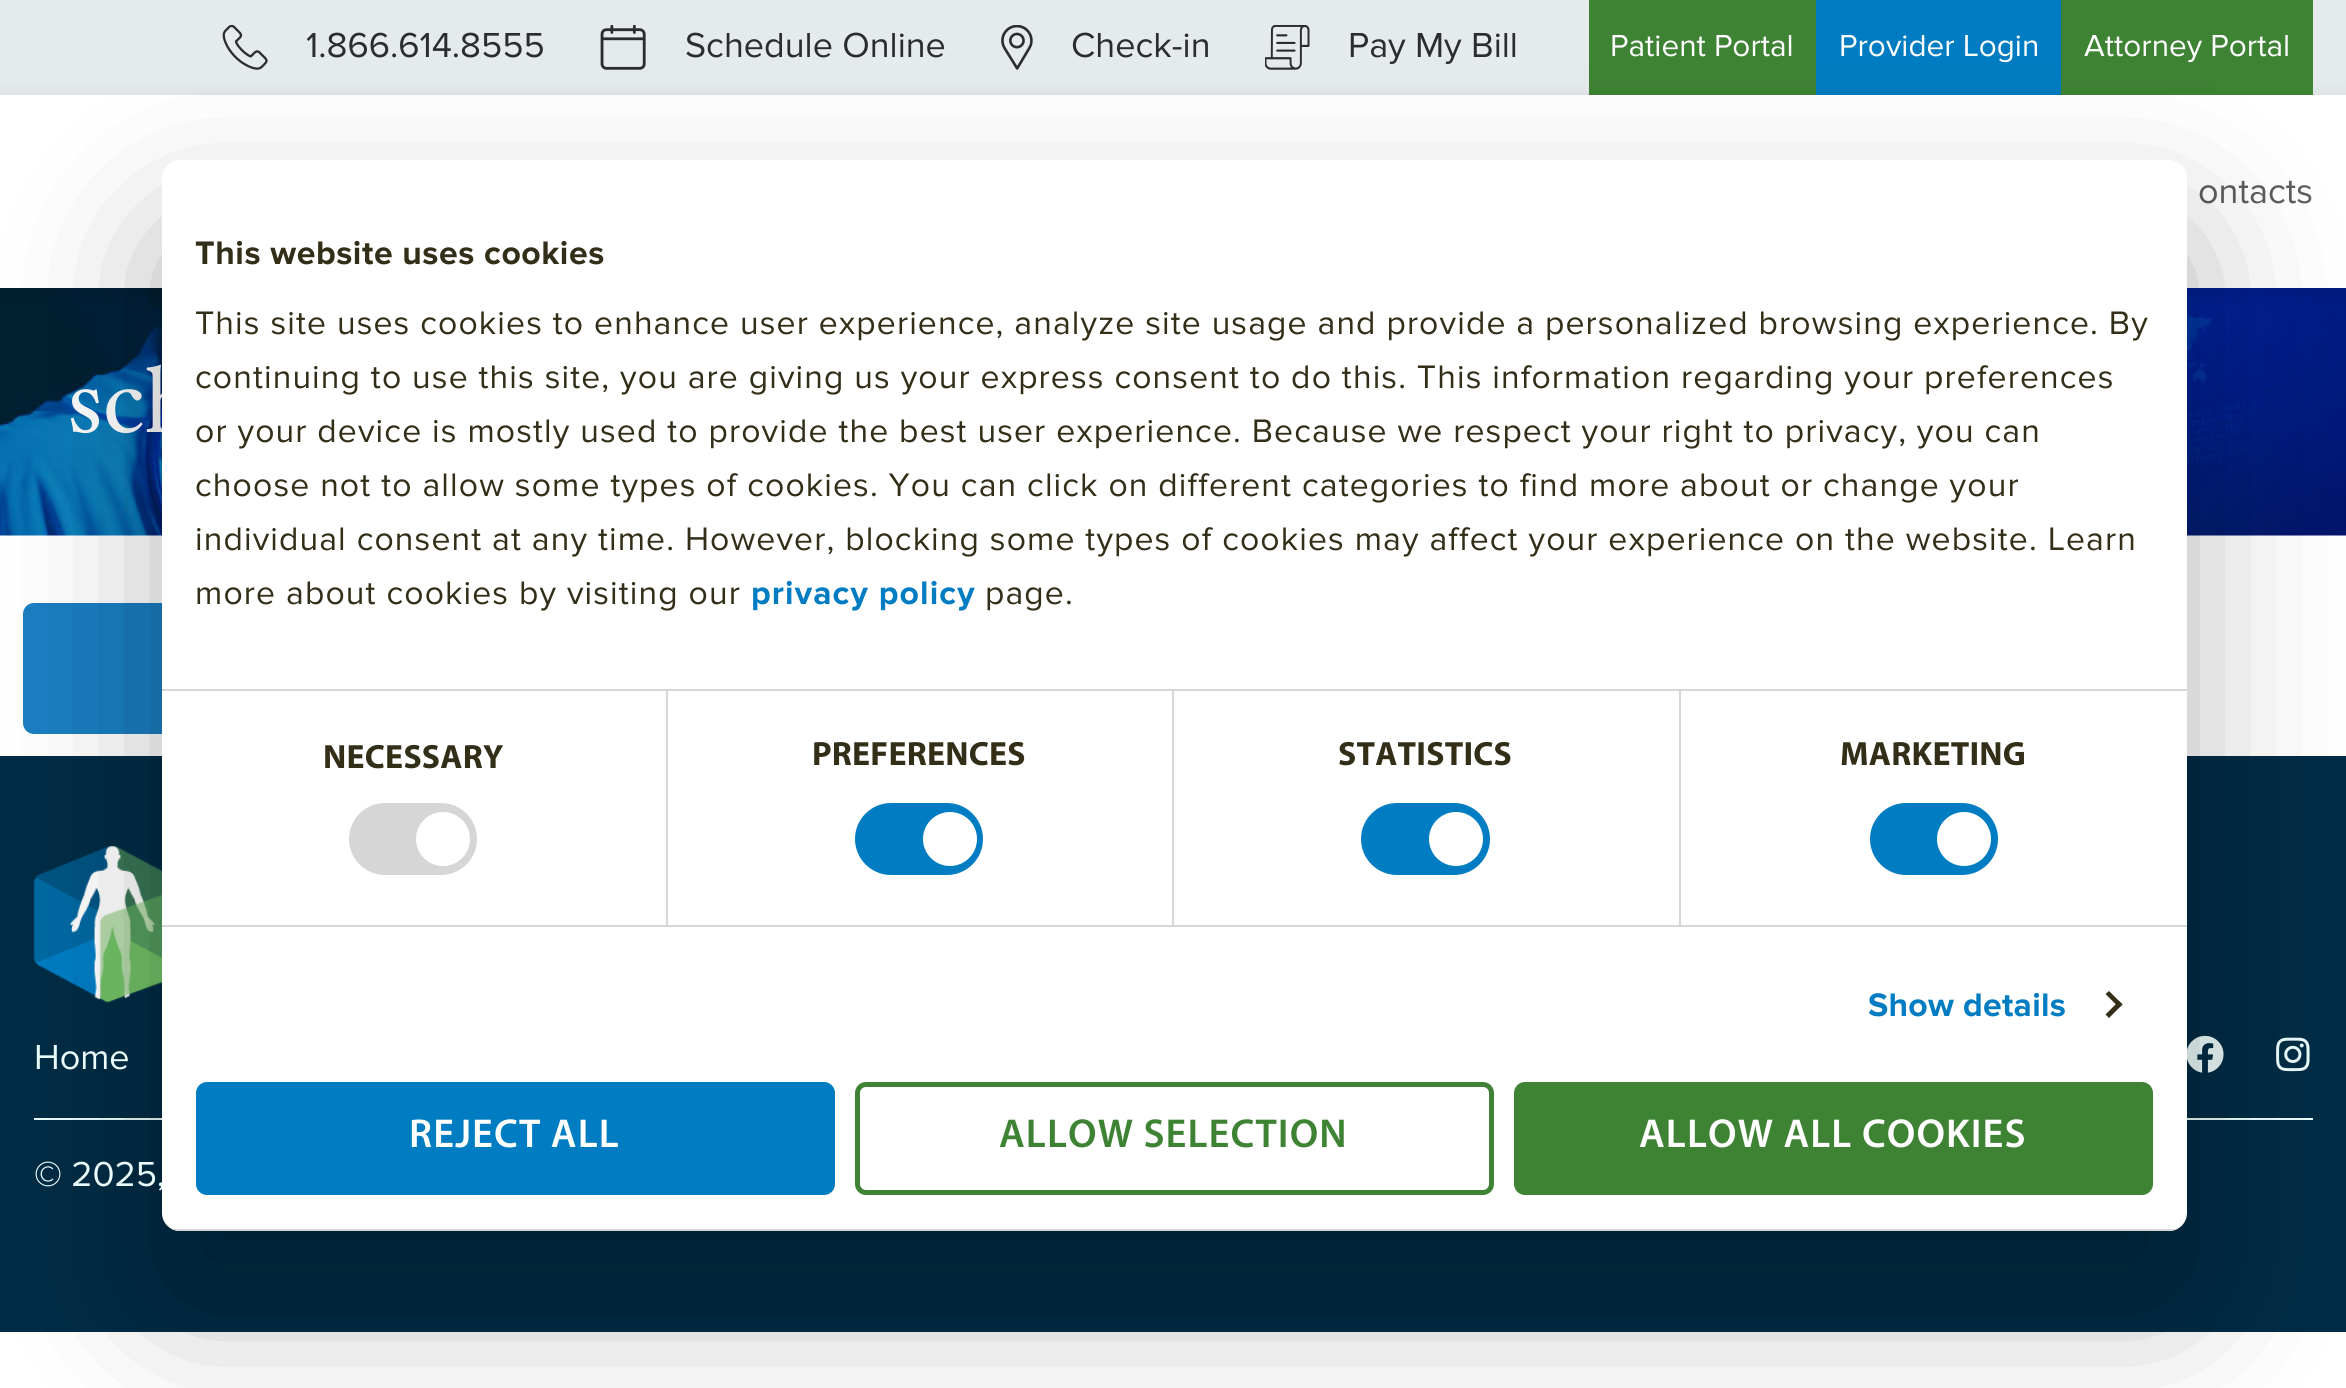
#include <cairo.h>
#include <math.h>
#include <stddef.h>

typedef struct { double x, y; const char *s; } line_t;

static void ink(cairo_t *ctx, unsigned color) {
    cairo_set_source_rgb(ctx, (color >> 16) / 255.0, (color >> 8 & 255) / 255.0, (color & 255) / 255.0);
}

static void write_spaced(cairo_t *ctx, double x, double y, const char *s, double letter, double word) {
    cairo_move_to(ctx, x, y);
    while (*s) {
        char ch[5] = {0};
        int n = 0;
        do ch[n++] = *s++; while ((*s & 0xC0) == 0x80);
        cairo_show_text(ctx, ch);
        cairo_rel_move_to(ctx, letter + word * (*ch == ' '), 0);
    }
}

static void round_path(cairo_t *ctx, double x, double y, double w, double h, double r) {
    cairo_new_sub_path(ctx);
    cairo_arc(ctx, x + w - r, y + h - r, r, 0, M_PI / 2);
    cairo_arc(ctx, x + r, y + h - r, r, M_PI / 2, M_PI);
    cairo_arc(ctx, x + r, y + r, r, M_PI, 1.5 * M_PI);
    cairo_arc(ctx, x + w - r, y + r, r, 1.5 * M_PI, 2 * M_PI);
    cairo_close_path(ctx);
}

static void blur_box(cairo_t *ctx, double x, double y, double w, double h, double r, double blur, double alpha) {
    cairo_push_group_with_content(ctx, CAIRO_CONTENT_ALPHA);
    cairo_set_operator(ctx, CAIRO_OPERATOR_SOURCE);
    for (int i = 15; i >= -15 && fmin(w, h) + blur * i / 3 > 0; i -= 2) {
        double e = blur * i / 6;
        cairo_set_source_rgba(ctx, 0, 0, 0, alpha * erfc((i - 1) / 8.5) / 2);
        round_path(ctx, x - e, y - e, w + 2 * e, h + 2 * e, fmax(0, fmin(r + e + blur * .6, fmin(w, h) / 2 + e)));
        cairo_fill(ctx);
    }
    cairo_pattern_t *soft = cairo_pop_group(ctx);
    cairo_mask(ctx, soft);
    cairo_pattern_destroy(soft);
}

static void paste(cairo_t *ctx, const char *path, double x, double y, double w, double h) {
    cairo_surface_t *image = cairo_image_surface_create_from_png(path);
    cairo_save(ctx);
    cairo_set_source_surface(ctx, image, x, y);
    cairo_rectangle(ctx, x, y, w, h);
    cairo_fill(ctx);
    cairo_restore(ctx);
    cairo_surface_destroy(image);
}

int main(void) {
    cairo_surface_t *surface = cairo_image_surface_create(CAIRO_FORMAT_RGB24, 2346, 1388);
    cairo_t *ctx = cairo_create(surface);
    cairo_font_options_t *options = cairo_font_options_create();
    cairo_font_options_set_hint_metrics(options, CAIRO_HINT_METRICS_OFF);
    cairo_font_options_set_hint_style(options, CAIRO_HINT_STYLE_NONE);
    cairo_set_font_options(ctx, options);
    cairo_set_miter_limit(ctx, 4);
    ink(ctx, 0xFFFFFF);
    cairo_paint(ctx);
    ink(ctx, 0xE5EAED);
    cairo_rectangle(ctx, 0, 0, 2346, 95);
    cairo_fill(ctx);
    paste(ctx, "media/1.png", 222, 25, 46, 45);
    cairo_select_font_face(ctx, "Proxima Nova", CAIRO_FONT_SLANT_NORMAL, CAIRO_FONT_WEIGHT_NORMAL);
    cairo_set_font_size(ctx, 36);
    ink(ctx, 0x2B2C2E);
    cairo_move_to(ctx, 306, 57);
    cairo_show_text(ctx, "1.866.614.8555");
    paste(ctx, "media/2.png", 600, 25, 46, 45);
    cairo_move_to(ctx, 685, 57);
    cairo_show_text(ctx, "Schedule Online");
    paste(ctx, "media/3.png", 1001, 25, 32, 45);
    cairo_move_to(ctx, 1071, 57);
    cairo_show_text(ctx, "Check-in");
    paste(ctx, "media/4.png", 1265, 25, 45, 45);
    cairo_move_to(ctx, 1348, 57);
    cairo_show_text(ctx, "Pay My Bill");
    ink(ctx, 0x3E8334);
    cairo_rectangle(ctx, 1589, 0, 227, 95);
    cairo_fill(ctx);
    cairo_set_font_size(ctx, 31.5);
    ink(ctx, 0xFFFFFF);
    cairo_move_to(ctx, 1610, 56);
    cairo_show_text(ctx, "Patient Portal");
    ink(ctx, 0x007CC2);
    cairo_rectangle(ctx, 1816, 0, 245, 95);
    cairo_fill(ctx);
    ink(ctx, 0xFFFFFF);
    cairo_move_to(ctx, 1839, 56);
    cairo_show_text(ctx, "Provider Login");
    ink(ctx, 0x3E8334);
    cairo_rectangle(ctx, 2061, 0, 252, 95);
    cairo_fill(ctx);
    ink(ctx, 0xFFFFFF);
    cairo_move_to(ctx, 2084, 56);
    cairo_show_text(ctx, "Attorney Portal");
    paste(ctx, "media/5.png", 0, 288, 2346, 248);
    cairo_save(ctx);
    cairo_set_fill_rule(ctx, CAIRO_FILL_RULE_EVEN_ODD);
    cairo_new_path(ctx);
    cairo_move_to(ctx, 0, 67);
    cairo_line_to(ctx, 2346, 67);
    cairo_line_to(ctx, 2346, 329);
    cairo_line_to(ctx, 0, 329);
    cairo_close_path(ctx);
    cairo_move_to(ctx, 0, 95);
    cairo_line_to(ctx, 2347, 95);
    cairo_line_to(ctx, 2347, 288);
    cairo_line_to(ctx, 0, 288);
    cairo_close_path(ctx);
    cairo_clip(ctx);
    ink(ctx, 0x000000);
    blur_box(ctx, 0, 101, 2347, 194, 0, 11, 0.1);
    cairo_restore(ctx);
    cairo_set_font_size(ctx, 36);
    ink(ctx, 0x5C5D5F);
    cairo_move_to(ctx, 2198, 203);
    cairo_show_text(ctx, "ontacts");
    cairo_select_font_face(ctx, "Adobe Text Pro", CAIRO_FONT_SLANT_NORMAL, CAIRO_FONT_WEIGHT_NORMAL);
    cairo_set_font_size(ctx, 94);
    ink(ctx, 0xFFFFFF);
    cairo_move_to(ctx, 68, 432);
    cairo_show_text(ctx, "sch");
    ink(ctx, 0x1A7EC1);
    round_path(ctx, 25.5, 605.5, 557, 126, 8.5);
    cairo_fill_preserve(ctx);
    cairo_set_line_width(ctx, 5);
    cairo_stroke(ctx);
    ink(ctx, 0x002C45);
    cairo_rectangle(ctx, 0, 756, 2346, 576);
    cairo_fill(ctx);
    paste(ctx, "media/6.png", 33, 846, 129, 157);
    paste(ctx, "media/7.png", 2187, 1035, 37, 38);
    paste(ctx, "media/8.png", 2276, 1037, 34, 35);
    ink(ctx, 0xEBFCFB);
    cairo_rectangle(ctx, 34, 1118, 2279, 2);
    cairo_fill(ctx);
    ink(ctx, 0x000000);
    blur_box(ctx, 162, 232, 2025, 1071, 18, 76.5, 0.3);
    cairo_select_font_face(ctx, "Proxima Nova", CAIRO_FONT_SLANT_NORMAL, CAIRO_FONT_WEIGHT_NORMAL);
    cairo_set_font_size(ctx, 36);
    ink(ctx, 0xEBFCFB);
    cairo_move_to(ctx, 34, 1186);
    cairo_show_text(ctx, "© 2025,");
    ink(ctx, 0xFFFFFF);
    round_path(ctx, 162, 160, 2025, 1071, 18);
    cairo_fill(ctx);
    ink(ctx, 0xD6D6D6);
    cairo_rectangle(ctx, 162, 689, 2025, 2);
    cairo_fill(ctx);
    cairo_select_font_face(ctx, "Proxima Nova", CAIRO_FONT_SLANT_NORMAL, CAIRO_FONT_WEIGHT_BOLD);
    cairo_set_font_size(ctx, 33.75);
    ink(ctx, 0x322E18);
    write_spaced(ctx, 195, 264, "This website uses cookies", 0.55, 0);
    cairo_select_font_face(ctx, "Proxima Nova", CAIRO_FONT_SLANT_NORMAL, CAIRO_FONT_WEIGHT_NORMAL);
    {
        static const line_t items[] = {
            {195, 334, "This site uses cookies to enhance user experience, analyze site usage and provide a personalized browsing experience. By"},
            {195, 388, "continuing to use this site, you are giving us your express consent to do this. This information regarding your preferences"},
            {195, 442, "or your device is mostly used to provide the best user experience. Because we respect your right to privacy, you can"},
            {195, 496, "choose not to allow some types of cookies. You can click on different categories to find more about or change your"},
            {195, 550, "individual consent at any time. However, blocking some types of cookies may affect your experience on the website. Learn"},
            {195, 604, "more about cookies by visiting our"},
        };
        for (size_t i = 0; i < sizeof items / sizeof *items; i++) {
            write_spaced(ctx, items[i].x, items[i].y, items[i].s, 1.12, 0);
        }
    }
    cairo_select_font_face(ctx, "Proxima Nova", CAIRO_FONT_SLANT_NORMAL, CAIRO_FONT_WEIGHT_BOLD);
    ink(ctx, 0x007CC2);
    write_spaced(ctx, 751, 604, "privacy policy", 1.12, 0);
    cairo_select_font_face(ctx, "Proxima Nova", CAIRO_FONT_SLANT_NORMAL, CAIRO_FONT_WEIGHT_NORMAL);
    ink(ctx, 0x322E18);
    write_spaced(ctx, 985, 604, "page.", 1.12, 0);
    ink(ctx, 0xD6D6D6);
    cairo_rectangle(ctx, 162, 925, 2025, 2);
    cairo_fill(ctx);
    cairo_rectangle(ctx, 666, 691, 2, 234);
    cairo_fill(ctx);
    cairo_select_font_face(ctx, "Myriad", CAIRO_FONT_SLANT_NORMAL, CAIRO_FONT_WEIGHT_BOLD);
    ink(ctx, 0x322E18);
    write_spaced(ctx, 323, 768, "NECESSARY", 0.25, 0);
    ink(ctx, 0xD6D6D6);
    round_path(ctx, 349, 803, 128, 72, 36);
    cairo_fill(ctx);
    ink(ctx, 0xFFFFFF);
    cairo_arc(ctx, 443, 839, 27, 0, 2 * M_PI);
    cairo_fill(ctx);
    ink(ctx, 0xD6D6D6);
    cairo_rectangle(ctx, 1172, 691, 2, 234);
    cairo_fill(ctx);
    ink(ctx, 0x322E18);
    write_spaced(ctx, 812, 765, "PREFERENCES", 0.25, 0);
    ink(ctx, 0x007CC2);
    round_path(ctx, 855, 803, 128, 72, 36);
    cairo_fill(ctx);
    ink(ctx, 0xFFFFFF);
    cairo_arc(ctx, 950, 839, 27, 0, 2 * M_PI);
    cairo_fill(ctx);
    ink(ctx, 0xD6D6D6);
    cairo_rectangle(ctx, 1679, 691, 2, 234);
    cairo_fill(ctx);
    ink(ctx, 0x322E18);
    write_spaced(ctx, 1338, 765, "STATISTICS", 0.25, 0);
    ink(ctx, 0x007CC2);
    round_path(ctx, 1361, 803, 129, 72, 36);
    cairo_fill(ctx);
    ink(ctx, 0xFFFFFF);
    cairo_arc(ctx, 1456, 839, 27, 0, 2 * M_PI);
    cairo_fill(ctx);
    ink(ctx, 0x322E18);
    write_spaced(ctx, 1840, 765, "MARKETING", 0.25, 0);
    ink(ctx, 0x007CC2);
    round_path(ctx, 1870, 803, 128, 72, 36);
    cairo_fill(ctx);
    ink(ctx, 0xFFFFFF);
    cairo_arc(ctx, 1964, 839, 27, 0, 2 * M_PI);
    cairo_fill(ctx);
    cairo_select_font_face(ctx, "Proxima Nova", CAIRO_FONT_SLANT_NORMAL, CAIRO_FONT_WEIGHT_BOLD);
    ink(ctx, 0x007CC2);
    write_spaced(ctx, 1868, 1016, "Show details", 0.25, 0);
    ink(ctx, 0x322E18);
    cairo_new_path(ctx);
    cairo_move_to(ctx, 2109, 991);
    cairo_line_to(ctx, 2122.5, 1004.5);
    cairo_line_to(ctx, 2119, 1007.5);
    cairo_line_to(ctx, 2105.5, 994);
    cairo_close_path(ctx);
    cairo_fill(ctx);
    cairo_new_path(ctx);
    cairo_move_to(ctx, 2119, 1001);
    cairo_line_to(ctx, 2122.5, 1004.5);
    cairo_line_to(ctx, 2109, 1018);
    cairo_line_to(ctx, 2105.5, 1014.5);
    cairo_close_path(ctx);
    cairo_fill(ctx);
    cairo_save(ctx);
    round_path(ctx, 162, 160, 2025, 1071, 18);
    cairo_clip(ctx);
    ink(ctx, 0xD6D6D6);
    cairo_rectangle(ctx, 172, 1229, 2005, 2);
    cairo_fill(ctx);
    cairo_restore(ctx);
    ink(ctx, 0x007CC2);
    round_path(ctx, 198.5, 1084.5, 634, 108, 8.5);
    cairo_fill_preserve(ctx);
    cairo_stroke(ctx);
    cairo_select_font_face(ctx, "Myriad SemiBold", CAIRO_FONT_SLANT_NORMAL, CAIRO_FONT_WEIGHT_NORMAL);
    cairo_set_font_size(ctx, 40.5);
    ink(ctx, 0xFFFFFF);
    write_spaced(ctx, 409, 1147, "REJECT ALL", 1.12, 0);
    round_path(ctx, 857.5, 1084.5, 634, 108, 8.5);
    ink(ctx, 0x3E8334);
    cairo_stroke(ctx);
    write_spaced(ctx, 999, 1147, "ALLOW SELECTION", 1.12, 0);
    round_path(ctx, 1516.5, 1084.5, 634, 108, 8.5);
    cairo_fill_preserve(ctx);
    cairo_stroke(ctx);
    ink(ctx, 0xFFFFFF);
    write_spaced(ctx, 1639, 1147, "ALLOW ALL COOKIES", 1.12, 0);
    cairo_select_font_face(ctx, "Proxima Nova", CAIRO_FONT_SLANT_NORMAL, CAIRO_FONT_WEIGHT_NORMAL);
    cairo_set_font_size(ctx, 36);
    ink(ctx, 0xEBFCFB);
    cairo_move_to(ctx, 34, 1069);
    cairo_show_text(ctx, "Home");
    cairo_surface_write_to_png(surface, "image.png");
    cairo_font_options_destroy(options);
    cairo_destroy(ctx);
    cairo_surface_destroy(surface);
    return 0;
}
